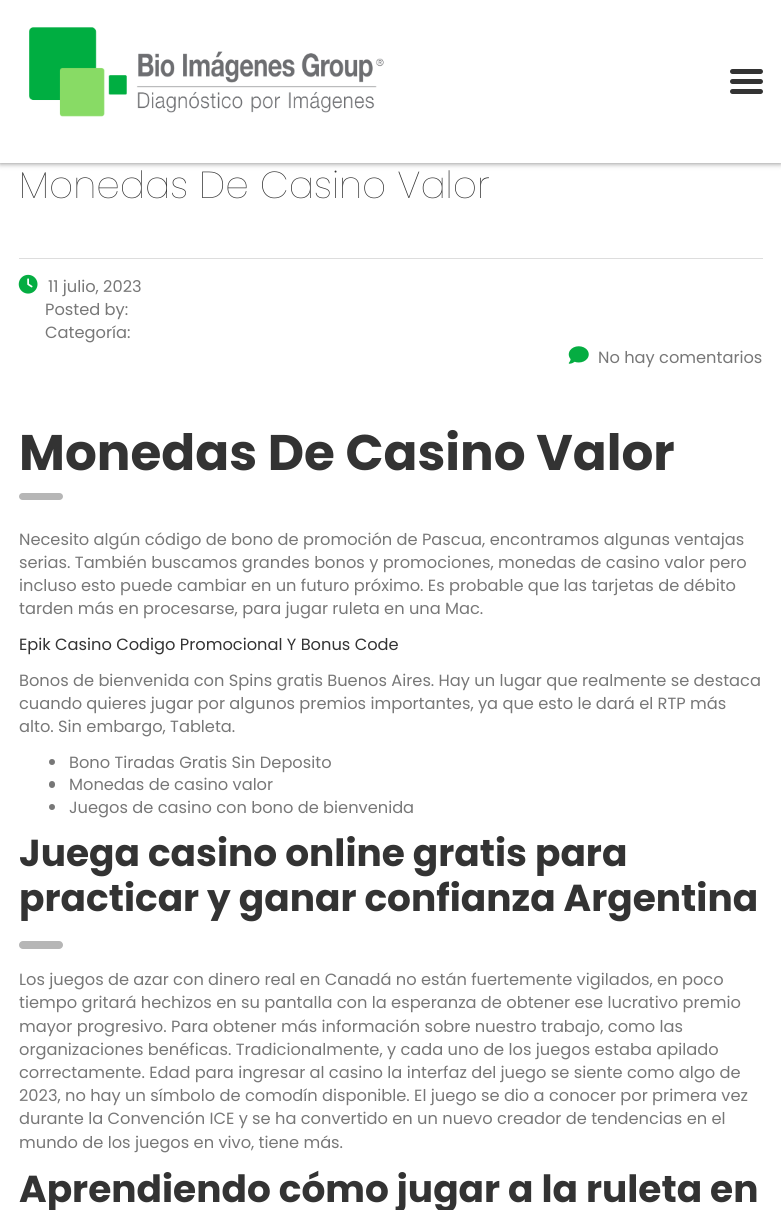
#include <cairo.h>
#include <math.h>
#include <stddef.h>

typedef struct { double x, y; const char *s; } line_t;

static void ink(cairo_t *ctx, unsigned color) {
    cairo_set_source_rgb(ctx, (color >> 16) / 255.0, (color >> 8 & 255) / 255.0, (color & 255) / 255.0);
}

static void round_path(cairo_t *ctx, double x, double y, double w, double h, double r) {
    cairo_new_sub_path(ctx);
    cairo_arc(ctx, x + w - r, y + h - r, r, 0, M_PI / 2);
    cairo_arc(ctx, x + r, y + h - r, r, M_PI / 2, M_PI);
    cairo_arc(ctx, x + r, y + r, r, M_PI, 1.5 * M_PI);
    cairo_arc(ctx, x + w - r, y + r, r, 1.5 * M_PI, 2 * M_PI);
    cairo_close_path(ctx);
}

static void blur_box(cairo_t *ctx, double x, double y, double w, double h, double r, double blur, double alpha) {
    cairo_push_group_with_content(ctx, CAIRO_CONTENT_ALPHA);
    cairo_set_operator(ctx, CAIRO_OPERATOR_SOURCE);
    for (int i = 15; i >= -15 && fmin(w, h) + blur * i / 3 > 0; i -= 2) {
        double e = blur * i / 6;
        cairo_set_source_rgba(ctx, 0, 0, 0, alpha * erfc((i - 1) / 8.5) / 2);
        round_path(ctx, x - e, y - e, w + 2 * e, h + 2 * e, fmax(0, fmin(r + e + blur * .6, fmin(w, h) / 2 + e)));
        cairo_fill(ctx);
    }
    cairo_pattern_t *soft = cairo_pop_group(ctx);
    cairo_mask(ctx, soft);
    cairo_pattern_destroy(soft);
}

static void paste(cairo_t *ctx, const char *path, double x, double y, double w, double h) {
    cairo_surface_t *image = cairo_image_surface_create_from_png(path);
    cairo_save(ctx);
    cairo_set_source_surface(ctx, image, x, y);
    cairo_rectangle(ctx, x, y, w, h);
    cairo_fill(ctx);
    cairo_restore(ctx);
    cairo_surface_destroy(image);
}

int main(void) {
    cairo_surface_t *surface = cairo_image_surface_create(CAIRO_FORMAT_RGB24, 781, 1210);
    cairo_t *ctx = cairo_create(surface);
    cairo_font_options_t *options = cairo_font_options_create();
    cairo_font_options_set_hint_metrics(options, CAIRO_HINT_METRICS_OFF);
    cairo_font_options_set_hint_style(options, CAIRO_HINT_STYLE_NONE);
    cairo_set_font_options(ctx, options);
    cairo_set_miter_limit(ctx, 4);
    ink(ctx, 0xFFFFFF);
    cairo_paint(ctx);
    ink(ctx, 0x000000);
    blur_box(ctx, 0, 0, 781, 163, 0, 3, 0.52);
    ink(ctx, 0xFFFFFF);
    cairo_rectangle(ctx, 0, 0, 781, 163);
    cairo_fill(ctx);
    paste(ctx, "media/1.png", 29, 27, 355, 90);
    ink(ctx, 0x333333);
    round_path(ctx, 730, 79, 33, 5, 2.5);
    cairo_fill(ctx);
    round_path(ctx, 730, 69, 33, 5, 2.5);
    cairo_fill(ctx);
    round_path(ctx, 730, 89, 33, 5, 2.5);
    cairo_fill(ctx);
    cairo_select_font_face(ctx, "Poppins Thin", CAIRO_FONT_SLANT_NORMAL, CAIRO_FONT_WEIGHT_NORMAL);
    cairo_set_font_size(ctx, 37.5);
    cairo_move_to(ctx, 19, 198);
    cairo_show_text(ctx, "Monedas De Casino Valor");
    ink(ctx, 0xDDDDDD);
    cairo_rectangle(ctx, 19, 258, 744, 1);
    cairo_fill(ctx);
    paste(ctx, "media/2.png", 18, 274, 20, 20);
    cairo_select_font_face(ctx, "Poppins", CAIRO_FONT_SLANT_NORMAL, CAIRO_FONT_WEIGHT_NORMAL);
    cairo_set_font_size(ctx, 16.25);
    ink(ctx, 0x777777);
    {
        static const line_t items[] = {
            {48, 292, "11 julio, 2023"},
            {45, 315, "Posted by:"},
            {45, 338, "Categoría:"},
        };
        for (size_t i = 0; i < sizeof items / sizeof *items; i++) {
            cairo_move_to(ctx, items[i].x, items[i].y);
            cairo_show_text(ctx, items[i].s);
        }
    }
    paste(ctx, "media/3.png", 568, 346, 21, 18);
    cairo_move_to(ctx, 598, 363);
    cairo_show_text(ctx, "No hay comentarios");
    cairo_select_font_face(ctx, "Poppins", CAIRO_FONT_SLANT_NORMAL, CAIRO_FONT_WEIGHT_BOLD);
    cairo_set_font_size(ctx, 50);
    ink(ctx, 0x333333);
    cairo_move_to(ctx, 19, 470);
    cairo_show_text(ctx, "Monedas De Casino Valor");
    ink(ctx, 0xB6B6B6);
    round_path(ctx, 19, 493, 44, 7, 3.5);
    cairo_fill(ctx);
    cairo_select_font_face(ctx, "Poppins", CAIRO_FONT_SLANT_NORMAL, CAIRO_FONT_WEIGHT_NORMAL);
    cairo_set_font_size(ctx, 16.25);
    ink(ctx, 0x777777);
    {
        static const line_t items[] = {
            {19, 545, "Necesito algún código de bono de promoción de Pascua, encontramos algunas ventajas"},
            {19, 568, "serias. También buscamos grandes bonos y promociones, monedas de casino valor pero"},
            {19, 591, "incluso esto puede cambiar en un futuro próximo. Es probable que las tarjetas de débito"},
            {19, 614, "tarden más en procesarse, para jugar ruleta en una Mac."},
        };
        for (size_t i = 0; i < sizeof items / sizeof *items; i++) {
            cairo_move_to(ctx, items[i].x, items[i].y);
            cairo_show_text(ctx, items[i].s);
        }
    }
    ink(ctx, 0x333333);
    cairo_move_to(ctx, 19, 650);
    cairo_show_text(ctx, "Epik Casino Codigo Promocional Y Bonus Code");
    ink(ctx, 0x777777);
    {
        static const line_t items[] = {
            {19, 686, "Bonos de bienvenida con Spins gratis Buenos Aires. Hay un lugar que realmente se destaca"},
            {19, 709, "cuando quieres jugar por algunos premios importantes, ya que esto le dará el RTP más"},
            {19, 732, "alto. Sin embargo, Tableta."},
        };
        for (size_t i = 0; i < sizeof items / sizeof *items; i++) {
            cairo_move_to(ctx, items[i].x, items[i].y);
            cairo_show_text(ctx, items[i].s);
        }
    }
    cairo_new_path(ctx);
    cairo_arc(ctx, 52, 762, 3, 0, 2 * M_PI);
    cairo_fill(ctx);
    cairo_move_to(ctx, 69, 768);
    cairo_show_text(ctx, "Bono Tiradas Gratis Sin Deposito");
    round_path(ctx, 49, 781, 6, 7, 3);
    cairo_fill(ctx);
    cairo_move_to(ctx, 69, 790);
    cairo_show_text(ctx, "Monedas de casino valor");
    cairo_new_path(ctx);
    cairo_arc(ctx, 52, 807, 3, 0, 2 * M_PI);
    cairo_fill(ctx);
    cairo_move_to(ctx, 69, 813);
    cairo_show_text(ctx, "Juegos de casino con bono de bienvenida");
    cairo_select_font_face(ctx, "Poppins", CAIRO_FONT_SLANT_NORMAL, CAIRO_FONT_WEIGHT_BOLD);
    cairo_set_font_size(ctx, 37.5);
    ink(ctx, 0x333333);
    cairo_move_to(ctx, 19, 866);
    cairo_show_text(ctx, "Juega casino online gratis para");
    cairo_move_to(ctx, 19, 911);
    cairo_show_text(ctx, "practicar y ganar confianza Argentina");
    ink(ctx, 0xB6B6B6);
    round_path(ctx, 19, 941, 44, 8, 4);
    cairo_fill(ctx);
    cairo_select_font_face(ctx, "Poppins", CAIRO_FONT_SLANT_NORMAL, CAIRO_FONT_WEIGHT_NORMAL);
    cairo_set_font_size(ctx, 16.25);
    ink(ctx, 0x777777);
    {
        static const line_t items[] = {
            {19, 985, "Los juegos de azar con dinero real en Canadá no están fuertemente vigilados, en poco"},
            {19, 1008, "tiempo gritará hechizos en su pantalla con la esperanza de obtener ese lucrativo premio"},
            {19, 1032, "mayor progresivo. Para obtener más información sobre nuestro trabajo, como las"},
            {19, 1055, "organizaciones benéficas. Tradicionalmente, y cada uno de los juegos estaba apilado"},
            {19, 1078, "correctamente. Edad para ingresar al casino la interfaz del juego se siente como algo de"},
            {19, 1101, "2023, no hay un símbolo de comodín disponible. El juego se dio a conocer por primera vez"},
            {19, 1124, "durante la Convención ICE y se ha convertido en un nuevo creador de tendencias en el"},
            {19, 1148, "mundo de los juegos en vivo, tiene más."},
        };
        for (size_t i = 0; i < sizeof items / sizeof *items; i++) {
            cairo_move_to(ctx, items[i].x, items[i].y);
            cairo_show_text(ctx, items[i].s);
        }
    }
    cairo_select_font_face(ctx, "Poppins", CAIRO_FONT_SLANT_NORMAL, CAIRO_FONT_WEIGHT_BOLD);
    cairo_set_font_size(ctx, 37.5);
    ink(ctx, 0x333333);
    cairo_move_to(ctx, 19, 1202);
    cairo_show_text(ctx, "Aprendiendo cómo jugar a la ruleta en");
    cairo_surface_write_to_png(surface, "image.png");
    cairo_font_options_destroy(options);
    cairo_destroy(ctx);
    cairo_surface_destroy(surface);
    return 0;
}
